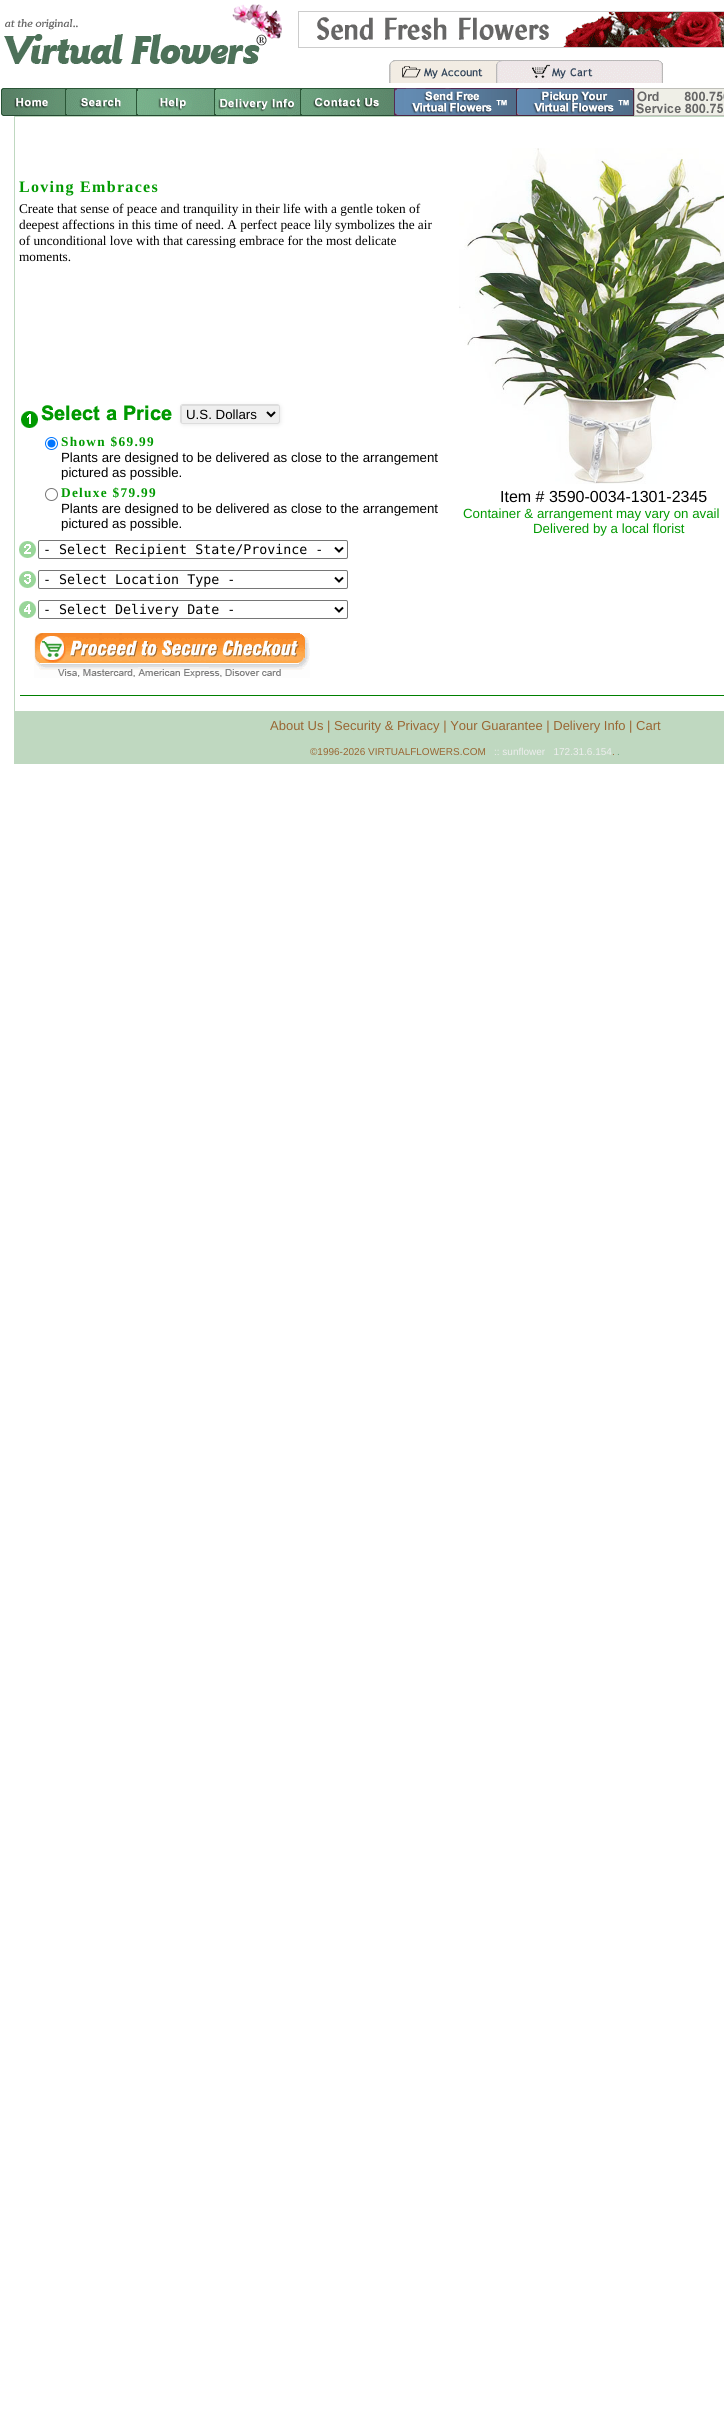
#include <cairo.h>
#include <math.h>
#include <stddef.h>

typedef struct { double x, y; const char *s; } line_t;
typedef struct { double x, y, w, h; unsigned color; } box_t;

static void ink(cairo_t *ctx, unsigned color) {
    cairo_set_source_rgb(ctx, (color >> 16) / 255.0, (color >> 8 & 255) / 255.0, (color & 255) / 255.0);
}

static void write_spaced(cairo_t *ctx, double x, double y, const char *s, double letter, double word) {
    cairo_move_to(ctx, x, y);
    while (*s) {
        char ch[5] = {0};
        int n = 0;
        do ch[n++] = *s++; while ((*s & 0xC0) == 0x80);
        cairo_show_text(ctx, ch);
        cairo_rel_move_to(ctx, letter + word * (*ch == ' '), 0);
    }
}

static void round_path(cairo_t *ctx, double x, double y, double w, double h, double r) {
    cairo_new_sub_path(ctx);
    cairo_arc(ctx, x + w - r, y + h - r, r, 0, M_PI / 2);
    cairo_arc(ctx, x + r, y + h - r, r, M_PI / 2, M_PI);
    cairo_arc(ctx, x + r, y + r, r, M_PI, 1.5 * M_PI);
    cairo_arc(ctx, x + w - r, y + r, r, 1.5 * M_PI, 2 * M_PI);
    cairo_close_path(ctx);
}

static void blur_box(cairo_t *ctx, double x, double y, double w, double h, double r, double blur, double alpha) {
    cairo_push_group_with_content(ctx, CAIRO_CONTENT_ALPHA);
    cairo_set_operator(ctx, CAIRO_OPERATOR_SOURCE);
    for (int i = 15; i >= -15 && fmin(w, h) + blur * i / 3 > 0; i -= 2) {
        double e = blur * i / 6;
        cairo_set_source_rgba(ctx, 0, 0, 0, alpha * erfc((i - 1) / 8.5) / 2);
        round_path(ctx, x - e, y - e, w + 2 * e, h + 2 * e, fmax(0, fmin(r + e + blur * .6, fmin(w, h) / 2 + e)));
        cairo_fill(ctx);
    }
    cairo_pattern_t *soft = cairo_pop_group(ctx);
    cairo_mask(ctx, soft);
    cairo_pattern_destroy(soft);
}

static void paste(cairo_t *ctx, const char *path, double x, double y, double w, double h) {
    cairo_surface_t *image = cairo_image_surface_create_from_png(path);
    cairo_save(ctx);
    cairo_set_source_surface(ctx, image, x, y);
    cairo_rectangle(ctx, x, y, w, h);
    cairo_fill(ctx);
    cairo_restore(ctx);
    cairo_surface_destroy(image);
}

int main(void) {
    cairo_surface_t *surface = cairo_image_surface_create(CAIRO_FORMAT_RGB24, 724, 2414);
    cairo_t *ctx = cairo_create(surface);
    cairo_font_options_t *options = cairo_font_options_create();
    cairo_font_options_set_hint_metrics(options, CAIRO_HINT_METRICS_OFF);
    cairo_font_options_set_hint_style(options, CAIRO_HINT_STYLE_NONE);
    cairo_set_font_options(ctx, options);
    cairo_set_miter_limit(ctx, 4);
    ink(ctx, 0xFFFFFF);
    cairo_paint(ctx);
    paste(ctx, "media/1.png", 4, 4, 278, 60);
    paste(ctx, "media/2.png", 298, 11, 426, 37);
    paste(ctx, "media/3.png", 389, 60, 107, 23);
    paste(ctx, "media/4.png", 496, 60, 167, 23);
    paste(ctx, "media/5.png", 1, 88, 64, 28);
    paste(ctx, "media/6.png", 65, 88, 71, 28);
    paste(ctx, "media/7.png", 136, 88, 78, 28);
    paste(ctx, "media/8.png", 214, 88, 86, 28);
    paste(ctx, "media/9.png", 300, 88, 94, 28);
    paste(ctx, "media/10.png", 394, 88, 122, 28);
    paste(ctx, "media/11.png", 516, 88, 118, 28);
    paste(ctx, "media/12.png", 634, 88, 90, 28);
    {
        static const box_t items[] = {
            {14, 116, 710, 1, 0xBFD8C0},
            {14, 711, 710, 53, 0xBFD8C0},
            {14, 116, 1, 596, 0xBFD8C0},
        };
        for (size_t i = 0; i < sizeof items / sizeof *items; i++) {
            ink(ctx, items[i].color);
            cairo_rectangle(ctx, items[i].x, items[i].y, items[i].w, items[i].h);
            cairo_fill(ctx);
        }
    }
    cairo_select_font_face(ctx, "Liberation Serif", CAIRO_FONT_SLANT_NORMAL, CAIRO_FONT_WEIGHT_BOLD);
    cairo_set_font_size(ctx, 16);
    ink(ctx, 0x029A02);
    write_spaced(ctx, 19, 192, "Loving Embraces", 1.3, 0);
    cairo_select_font_face(ctx, "Liberation Serif", CAIRO_FONT_SLANT_NORMAL, CAIRO_FONT_WEIGHT_NORMAL);
    cairo_set_font_size(ctx, 13.3);
    ink(ctx, 0x000000);
    {
        static const line_t items[] = {
            {19, 213, "Create that sense of peace and tranquility in their life with a gentle token of"},
            {19, 229, "deepest affections in this time of need. A perfect peace lily symbolizes the air"},
            {19, 245, "of unconditional love with that caressing embrace for the most delicate"},
            {19, 261, "moments."},
        };
        for (size_t i = 0; i < sizeof items / sizeof *items; i++) {
            cairo_move_to(ctx, items[i].x, items[i].y);
            cairo_show_text(ctx, items[i].s);
        }
    }
    paste(ctx, "media/13.png", 459, 148, 265, 336);
    cairo_select_font_face(ctx, "Liberation Sans", CAIRO_FONT_SLANT_NORMAL, CAIRO_FONT_WEIGHT_NORMAL);
    cairo_set_font_size(ctx, 16);
    cairo_move_to(ctx, 500, 502);
    cairo_show_text(ctx, "Item # 3590-0034-1301-2345");
    cairo_set_font_size(ctx, 13.3);
    ink(ctx, 0x029A02);
    cairo_move_to(ctx, 463, 518);
    cairo_show_text(ctx, "Container & arrangement may vary on avail");
    cairo_move_to(ctx, 533, 533);
    cairo_show_text(ctx, "Delivered by a local florist");
    paste(ctx, "media/14.png", 21, 411, 17, 17);
    paste(ctx, "media/15.png", 41, 405, 131, 16);
    ink(ctx, 0xEBEBEB);
    blur_box(ctx, 181, 405, 100, 20, 3, 2, 1);
    ink(ctx, 0xEFEFEF);
    cairo_new_path(ctx);
    cairo_move_to(ctx, 183, 406);
    cairo_line_to(ctx, 277, 406);
    cairo_curve_to(ctx, 278, 406, 279, 406, 279, 407);
    cairo_line_to(ctx, 279, 421);
    cairo_curve_to(ctx, 279, 422, 278, 423, 277, 423);
    cairo_line_to(ctx, 183, 423);
    cairo_curve_to(ctx, 182, 423, 182, 422, 182, 421);
    cairo_line_to(ctx, 182, 407);
    cairo_curve_to(ctx, 182, 406, 182, 406, 183, 406);
    cairo_close_path(ctx);
    cairo_fill(ctx);
    round_path(ctx, 180.5, 404.5, 99, 19, 2.5);
    ink(ctx, 0xDDDDDD);
    cairo_set_line_width(ctx, 1);
    cairo_stroke(ctx);
    cairo_rectangle(ctx, 182, 405, 97, 1);
    cairo_fill(ctx);
    cairo_rectangle(ctx, 181, 406, 1, 17);
    cairo_fill(ctx);
    cairo_new_path(ctx);
    cairo_move_to(ctx, 267, 412);
    cairo_line_to(ctx, 271, 416);
    cairo_line_to(ctx, 275, 412);
    ink(ctx, 0x000000);
    cairo_set_line_width(ctx, 2);
    cairo_stroke(ctx);
    cairo_move_to(ctx, 186, 419);
    cairo_show_text(ctx, "U.S. Dollars");
    cairo_new_path(ctx);
    cairo_arc(ctx, 51.5, 443.5, 6, 0, 2 * M_PI);
    ink(ctx, 0x0075FF);
    cairo_set_line_width(ctx, 1);
    cairo_stroke(ctx);
    cairo_arc(ctx, 51.5, 443.5, 4, 0, 2 * M_PI);
    cairo_fill(ctx);
    cairo_select_font_face(ctx, "Liberation Serif", CAIRO_FONT_SLANT_NORMAL, CAIRO_FONT_WEIGHT_BOLD);
    ink(ctx, 0x029A02);
    write_spaced(ctx, 61, 446, "Shown $69.99", 1.3, 0);
    cairo_select_font_face(ctx, "Liberation Sans", CAIRO_FONT_SLANT_NORMAL, CAIRO_FONT_WEIGHT_NORMAL);
    ink(ctx, 0x000000);
    cairo_move_to(ctx, 61, 462);
    cairo_show_text(ctx, "Plants are designed to be delivered as close to the arrangement");
    cairo_move_to(ctx, 61, 477);
    cairo_show_text(ctx, "pictured as possible.");
    cairo_new_path(ctx);
    cairo_arc(ctx, 51.5, 494.5, 6, 0, 2 * M_PI);
    ink(ctx, 0x767676);
    cairo_stroke(ctx);
    cairo_select_font_face(ctx, "Liberation Serif", CAIRO_FONT_SLANT_NORMAL, CAIRO_FONT_WEIGHT_BOLD);
    ink(ctx, 0x029A02);
    write_spaced(ctx, 61, 497, "Deluxe $79.99", 1.3, 0);
    cairo_select_font_face(ctx, "Liberation Sans", CAIRO_FONT_SLANT_NORMAL, CAIRO_FONT_WEIGHT_NORMAL);
    ink(ctx, 0x000000);
    cairo_move_to(ctx, 61, 513);
    cairo_show_text(ctx, "Plants are designed to be delivered as close to the arrangement");
    cairo_move_to(ctx, 61, 528);
    cairo_show_text(ctx, "pictured as possible.");
    paste(ctx, "media/16.png", 19, 541, 17, 17);
    round_path(ctx, 38.5, 540.5, 309, 18, 1.5);
    ink(ctx, 0x767676);
    cairo_stroke(ctx);
    cairo_new_path(ctx);
    cairo_move_to(ctx, 335, 547.5);
    cairo_line_to(ctx, 339, 551.5);
    cairo_line_to(ctx, 343, 547.5);
    ink(ctx, 0x000000);
    cairo_set_line_width(ctx, 2);
    cairo_stroke(ctx);
    cairo_select_font_face(ctx, "DejaVu Sans Mono", CAIRO_FONT_SLANT_NORMAL, CAIRO_FONT_WEIGHT_NORMAL);
    cairo_move_to(ctx, 43, 554);
    cairo_show_text(ctx, "- Select Recipient State/Province -");
    paste(ctx, "media/17.png", 19, 571, 17, 17);
    round_path(ctx, 38.5, 570.5, 309, 18, 1.5);
    ink(ctx, 0x767676);
    cairo_set_line_width(ctx, 1);
    cairo_stroke(ctx);
    cairo_new_path(ctx);
    cairo_move_to(ctx, 335, 577.5);
    cairo_line_to(ctx, 339, 581.5);
    cairo_line_to(ctx, 343, 577.5);
    ink(ctx, 0x000000);
    cairo_set_line_width(ctx, 2);
    cairo_stroke(ctx);
    cairo_move_to(ctx, 43, 584);
    cairo_show_text(ctx, "- Select Location Type -");
    paste(ctx, "media/18.png", 19, 601, 17, 17);
    round_path(ctx, 38.5, 600.5, 309, 18, 1.5);
    ink(ctx, 0x767676);
    cairo_set_line_width(ctx, 1);
    cairo_stroke(ctx);
    cairo_new_path(ctx);
    cairo_move_to(ctx, 335, 607.5);
    cairo_line_to(ctx, 339, 611.5);
    cairo_line_to(ctx, 343, 607.5);
    ink(ctx, 0x000000);
    cairo_set_line_width(ctx, 2);
    cairo_stroke(ctx);
    cairo_move_to(ctx, 43, 614);
    cairo_show_text(ctx, "- Select Delivery Date -");
    paste(ctx, "media/19.png", 34, 633, 276, 45);
    ink(ctx, 0x008000);
    cairo_rectangle(ctx, 20, 695, 704, 1);
    cairo_fill(ctx);
    cairo_select_font_face(ctx, "Liberation Sans", CAIRO_FONT_SLANT_NORMAL, CAIRO_FONT_WEIGHT_NORMAL);
    cairo_set_font_size(ctx, 13);
    ink(ctx, 0x996633);
    cairo_move_to(ctx, 270, 730);
    cairo_show_text(ctx, "About Us | Security & Privacy | Your Guarantee | Delivery Info | Cart");
    cairo_set_font_size(ctx, 10);
    cairo_move_to(ctx, 310, 755);
    cairo_show_text(ctx, "©1996-2026 VIRTUALFLOWERS.COM");
    ink(ctx, 0xEEEEEE);
    cairo_move_to(ctx, 494, 755);
    cairo_show_text(ctx, ":: sunflower   172.31.6.154");
    ink(ctx, 0x996633);
    cairo_move_to(ctx, 612, 755);
    cairo_show_text(ctx, ".");
    ink(ctx, 0x69A17C);
    cairo_move_to(ctx, 617, 755);
    cairo_show_text(ctx, ".");
    cairo_surface_write_to_png(surface, "image.png");
    cairo_font_options_destroy(options);
    cairo_destroy(ctx);
    cairo_surface_destroy(surface);
    return 0;
}
